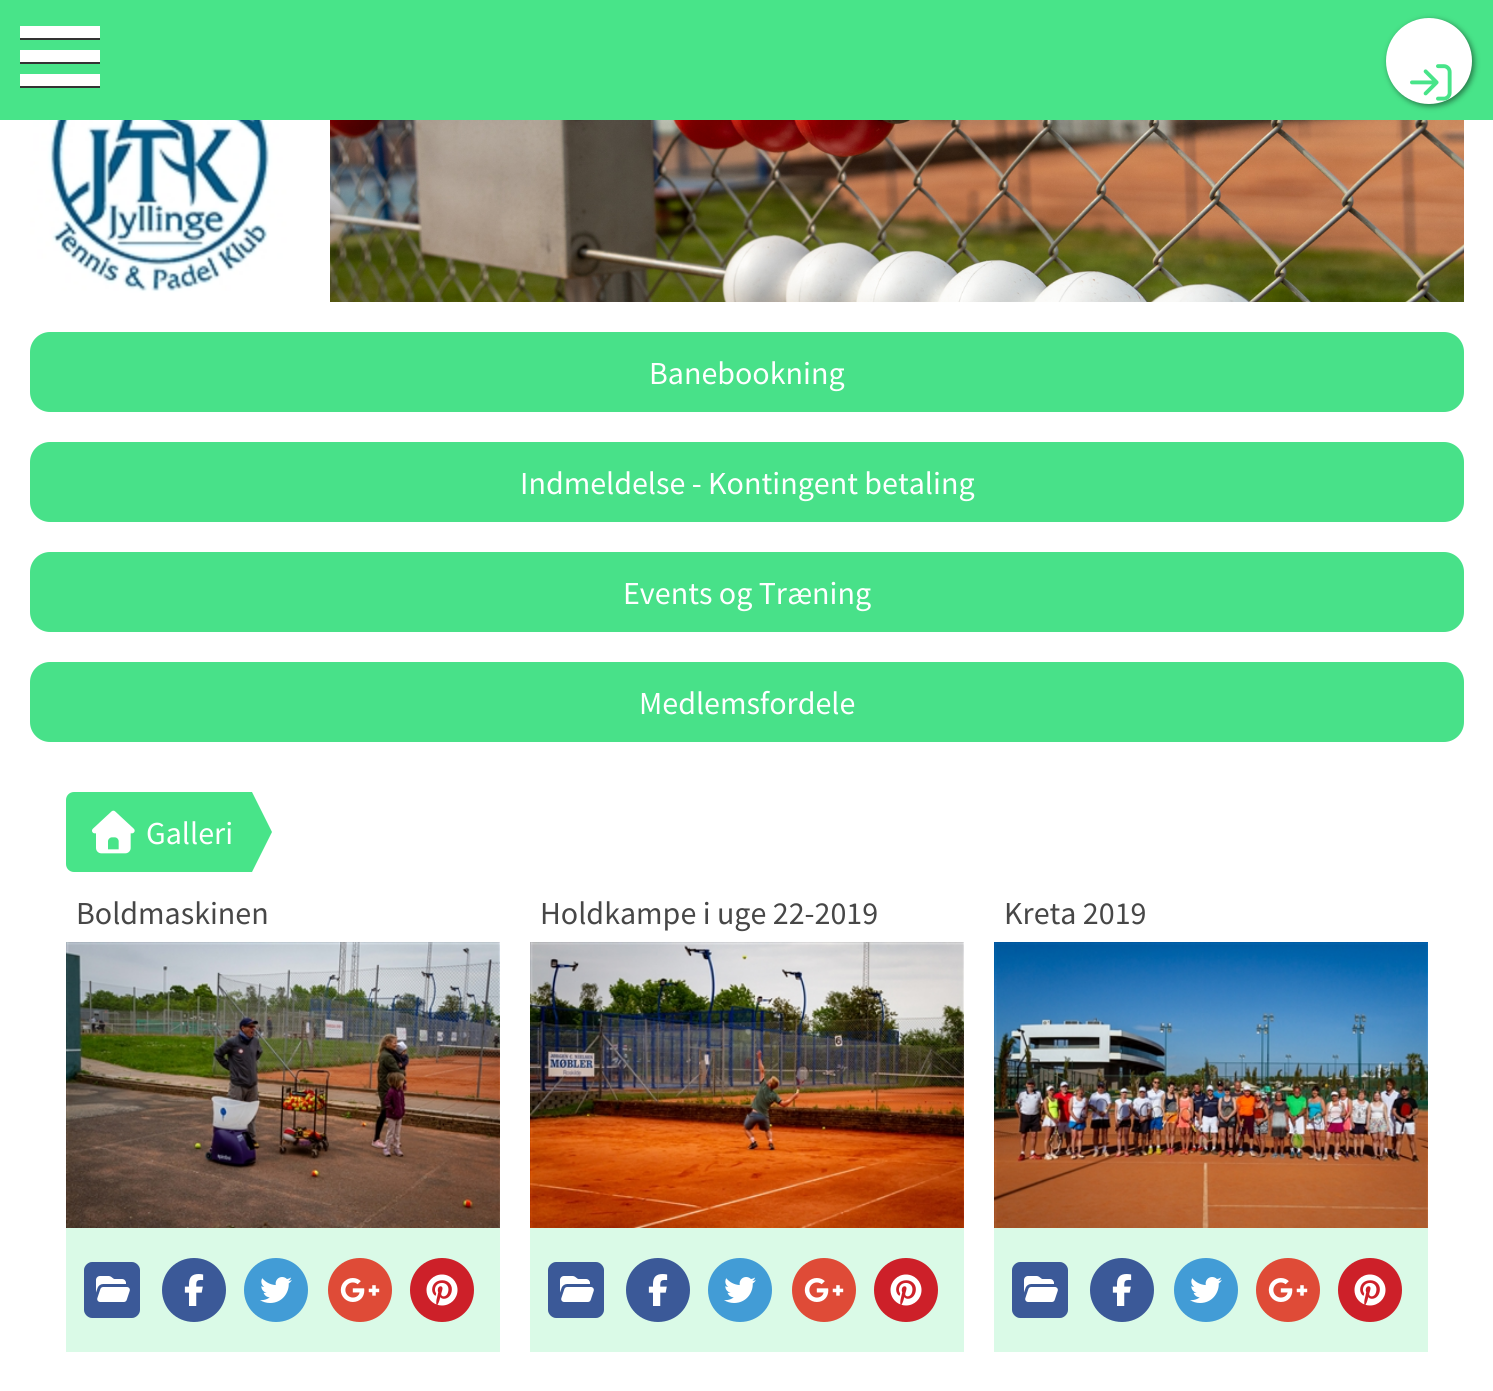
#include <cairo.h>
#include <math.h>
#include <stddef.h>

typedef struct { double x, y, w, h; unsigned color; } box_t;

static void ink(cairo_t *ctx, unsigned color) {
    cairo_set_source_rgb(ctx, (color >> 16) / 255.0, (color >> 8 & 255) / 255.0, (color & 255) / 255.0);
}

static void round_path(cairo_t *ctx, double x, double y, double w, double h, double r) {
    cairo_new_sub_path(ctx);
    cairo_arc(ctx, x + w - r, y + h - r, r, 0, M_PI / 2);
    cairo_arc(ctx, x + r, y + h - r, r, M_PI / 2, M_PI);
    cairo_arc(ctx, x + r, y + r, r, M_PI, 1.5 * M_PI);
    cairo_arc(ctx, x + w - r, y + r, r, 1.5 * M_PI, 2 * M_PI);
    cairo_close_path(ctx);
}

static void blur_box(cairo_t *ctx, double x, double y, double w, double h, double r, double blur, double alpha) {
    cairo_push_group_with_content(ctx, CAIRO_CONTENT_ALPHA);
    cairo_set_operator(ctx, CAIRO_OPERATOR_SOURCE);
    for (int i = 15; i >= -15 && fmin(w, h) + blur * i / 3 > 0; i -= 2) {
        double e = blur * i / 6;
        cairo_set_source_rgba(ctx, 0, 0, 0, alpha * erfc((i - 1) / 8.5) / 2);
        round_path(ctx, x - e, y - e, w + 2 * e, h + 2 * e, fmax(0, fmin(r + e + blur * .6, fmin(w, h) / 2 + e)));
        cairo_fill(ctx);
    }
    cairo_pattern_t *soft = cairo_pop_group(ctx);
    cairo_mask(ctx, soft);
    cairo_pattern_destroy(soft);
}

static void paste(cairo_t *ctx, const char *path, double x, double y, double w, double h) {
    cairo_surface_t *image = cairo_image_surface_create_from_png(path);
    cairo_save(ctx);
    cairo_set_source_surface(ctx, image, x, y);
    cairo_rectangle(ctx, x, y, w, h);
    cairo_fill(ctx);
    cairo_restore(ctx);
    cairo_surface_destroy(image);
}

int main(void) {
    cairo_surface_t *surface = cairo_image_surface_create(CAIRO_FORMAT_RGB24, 1493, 1391);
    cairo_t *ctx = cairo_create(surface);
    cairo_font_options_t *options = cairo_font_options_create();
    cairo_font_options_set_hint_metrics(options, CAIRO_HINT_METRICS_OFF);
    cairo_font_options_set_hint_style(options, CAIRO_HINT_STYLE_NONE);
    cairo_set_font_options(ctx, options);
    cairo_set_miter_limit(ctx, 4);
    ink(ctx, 0xFFFFFF);
    cairo_paint(ctx);
    {
        static const box_t items[] = {
            {0, 0, 1493, 120, 0x48E489},
            {20, 38, 80, 2, 0x333333},
            {20, 26, 80, 12, 0xFFFFFF},
            {20, 62, 80, 2, 0x333333},
            {20, 50, 80, 12, 0xFFFFFF},
            {20, 86, 80, 2, 0x333333},
            {20, 74, 80, 12, 0xFFFFFF},
        };
        for (size_t i = 0; i < sizeof items / sizeof *items; i++) {
            ink(ctx, items[i].color);
            cairo_rectangle(ctx, items[i].x, items[i].y, items[i].w, items[i].h);
            cairo_fill(ctx);
        }
    }
    ink(ctx, 0x000000);
    blur_box(ctx, 1388, 20, 86, 86, 43, 3, 0.5);
    ink(ctx, 0xFFFFFF);
    cairo_arc(ctx, 1429, 61, 43, 0, 2 * M_PI);
    cairo_fill(ctx);
    paste(ctx, "media/1.png", 1410, 64, 42, 37);
    paste(ctx, "media/2.png", 30, 120, 300, 182);
    paste(ctx, "media/3.png", 330, 120, 1134, 182);
    ink(ctx, 0x48E189);
    round_path(ctx, 30, 332, 1434, 80, 20);
    cairo_fill(ctx);
    cairo_select_font_face(ctx, "Source Sans Pro", CAIRO_FONT_SLANT_NORMAL, CAIRO_FONT_WEIGHT_NORMAL);
    cairo_set_font_size(ctx, 32);
    ink(ctx, 0xFFFFFF);
    cairo_move_to(ctx, 649, 384);
    cairo_show_text(ctx, "Banebookning");
    ink(ctx, 0x48E189);
    round_path(ctx, 30, 442, 1434, 80, 20);
    cairo_fill(ctx);
    ink(ctx, 0xFFFFFF);
    cairo_move_to(ctx, 520, 494);
    cairo_show_text(ctx, "Indmeldelse - Kontingent betaling");
    ink(ctx, 0x48E189);
    round_path(ctx, 30, 552, 1434, 80, 20);
    cairo_fill(ctx);
    ink(ctx, 0xFFFFFF);
    cairo_move_to(ctx, 623, 604);
    cairo_show_text(ctx, "Events og Træning");
    ink(ctx, 0x48E189);
    round_path(ctx, 30, 662, 1434, 80, 20);
    cairo_fill(ctx);
    ink(ctx, 0xFFFFFF);
    cairo_move_to(ctx, 639, 714);
    cairo_show_text(ctx, "Medlemsfordele");
    ink(ctx, 0x48E489);
    cairo_new_path(ctx);
    cairo_move_to(ctx, 74, 792);
    cairo_line_to(ctx, 252, 792);
    cairo_line_to(ctx, 252, 872);
    cairo_line_to(ctx, 74, 872);
    cairo_curve_to(ctx, 69.5, 872, 66, 868.5, 66, 864);
    cairo_line_to(ctx, 66, 800);
    cairo_curve_to(ctx, 66, 795.5, 69.5, 792, 74, 792);
    cairo_close_path(ctx);
    cairo_fill(ctx);
    paste(ctx, "media/4.png", 92, 810, 43, 44);
    ink(ctx, 0xFFFFFF);
    cairo_move_to(ctx, 146, 844);
    cairo_show_text(ctx, "Galleri");
    ink(ctx, 0x48E489);
    cairo_new_path(ctx);
    cairo_move_to(ctx, 252, 872);
    cairo_line_to(ctx, 252, 792);
    cairo_line_to(ctx, 272, 832);
    cairo_close_path(ctx);
    cairo_fill(ctx);
    ink(ctx, 0x474747);
    cairo_move_to(ctx, 76, 924);
    cairo_show_text(ctx, "Boldmaskinen");
    paste(ctx, "media/5.png", 66, 942, 434, 286);
    ink(ctx, 0xDAFAE7);
    cairo_rectangle(ctx, 66, 1228, 434, 124);
    cairo_fill(ctx);
    ink(ctx, 0x3B5998);
    cairo_new_path(ctx);
    cairo_move_to(ctx, 92, 1262);
    cairo_line_to(ctx, 132, 1262);
    cairo_curve_to(ctx, 136, 1262, 140, 1266, 140, 1270);
    cairo_line_to(ctx, 140, 1310);
    cairo_curve_to(ctx, 140, 1314, 136, 1318, 132, 1318);
    cairo_line_to(ctx, 92, 1318);
    cairo_curve_to(ctx, 88, 1318, 84, 1314, 84, 1310);
    cairo_line_to(ctx, 84, 1270);
    cairo_curve_to(ctx, 84, 1266, 88, 1262, 92, 1262);
    cairo_close_path(ctx);
    cairo_fill(ctx);
    paste(ctx, "media/6.png", 96, 1276, 34, 26);
    cairo_new_path(ctx);
    cairo_move_to(ctx, 162, 1290);
    cairo_curve_to(ctx, 162, 1272, 176, 1258, 194, 1258);
    cairo_curve_to(ctx, 212, 1258, 226, 1272, 226, 1290);
    cairo_curve_to(ctx, 226, 1308, 212, 1322, 194, 1322);
    cairo_curve_to(ctx, 176, 1322, 162, 1308, 162, 1290);
    cairo_close_path(ctx);
    cairo_fill(ctx);
    paste(ctx, "media/7.png", 184, 1274, 20, 32);
    ink(ctx, 0x429CD6);
    cairo_new_path(ctx);
    cairo_move_to(ctx, 244, 1290);
    cairo_curve_to(ctx, 244, 1272, 258, 1258, 276, 1258);
    cairo_curve_to(ctx, 294, 1258, 308, 1272, 308, 1290);
    cairo_curve_to(ctx, 308, 1308, 294, 1322, 276, 1322);
    cairo_curve_to(ctx, 258, 1322, 244, 1308, 244, 1290);
    cairo_close_path(ctx);
    cairo_fill(ctx);
    paste(ctx, "media/8.png", 260, 1277, 32, 26);
    ink(ctx, 0xDF4B37);
    cairo_new_path(ctx);
    cairo_move_to(ctx, 328, 1290);
    cairo_curve_to(ctx, 328, 1272, 342, 1258, 360, 1258);
    cairo_curve_to(ctx, 378, 1258, 392, 1272, 392, 1290);
    cairo_curve_to(ctx, 392, 1308, 378, 1322, 360, 1322);
    cairo_curve_to(ctx, 342, 1322, 328, 1308, 328, 1290);
    cairo_close_path(ctx);
    cairo_fill(ctx);
    paste(ctx, "media/9.png", 340, 1278, 40, 24);
    ink(ctx, 0xCD2029);
    cairo_new_path(ctx);
    cairo_move_to(ctx, 410, 1290);
    cairo_curve_to(ctx, 410, 1272, 424, 1258, 442, 1258);
    cairo_curve_to(ctx, 460, 1258, 474, 1272, 474, 1290);
    cairo_curve_to(ctx, 474, 1308, 460, 1322, 442, 1322);
    cairo_curve_to(ctx, 424, 1322, 410, 1308, 410, 1290);
    cairo_close_path(ctx);
    cairo_fill(ctx);
    paste(ctx, "media/10.png", 426, 1274, 32, 32);
    ink(ctx, 0x474747);
    cairo_move_to(ctx, 540, 924);
    cairo_show_text(ctx, "Holdkampe i uge 22-2019");
    paste(ctx, "media/11.png", 530, 942, 434, 286);
    ink(ctx, 0xDAFAE7);
    cairo_rectangle(ctx, 530, 1228, 434, 124);
    cairo_fill(ctx);
    ink(ctx, 0x3B5998);
    cairo_new_path(ctx);
    cairo_move_to(ctx, 556, 1262);
    cairo_line_to(ctx, 596, 1262);
    cairo_curve_to(ctx, 600, 1262, 604, 1266, 604, 1270);
    cairo_line_to(ctx, 604, 1310);
    cairo_curve_to(ctx, 604, 1314, 600, 1318, 596, 1318);
    cairo_line_to(ctx, 556, 1318);
    cairo_curve_to(ctx, 552, 1318, 548, 1314, 548, 1310);
    cairo_line_to(ctx, 548, 1270);
    cairo_curve_to(ctx, 548, 1266, 552, 1262, 556, 1262);
    cairo_close_path(ctx);
    cairo_fill(ctx);
    paste(ctx, "media/6.png", 560, 1276, 34, 26);
    cairo_new_path(ctx);
    cairo_move_to(ctx, 626, 1290);
    cairo_curve_to(ctx, 626, 1272, 640, 1258, 658, 1258);
    cairo_curve_to(ctx, 676, 1258, 690, 1272, 690, 1290);
    cairo_curve_to(ctx, 690, 1308, 676, 1322, 658, 1322);
    cairo_curve_to(ctx, 640, 1322, 626, 1308, 626, 1290);
    cairo_close_path(ctx);
    cairo_fill(ctx);
    paste(ctx, "media/7.png", 648, 1274, 20, 32);
    ink(ctx, 0x429CD6);
    cairo_new_path(ctx);
    cairo_move_to(ctx, 708, 1290);
    cairo_curve_to(ctx, 708, 1272, 722, 1258, 740, 1258);
    cairo_curve_to(ctx, 758, 1258, 772, 1272, 772, 1290);
    cairo_curve_to(ctx, 772, 1308, 758, 1322, 740, 1322);
    cairo_curve_to(ctx, 722, 1322, 708, 1308, 708, 1290);
    cairo_close_path(ctx);
    cairo_fill(ctx);
    paste(ctx, "media/8.png", 724, 1277, 32, 26);
    ink(ctx, 0xDF4B37);
    cairo_new_path(ctx);
    cairo_move_to(ctx, 792, 1290);
    cairo_curve_to(ctx, 792, 1272, 806, 1258, 824, 1258);
    cairo_curve_to(ctx, 842, 1258, 856, 1272, 856, 1290);
    cairo_curve_to(ctx, 856, 1308, 842, 1322, 824, 1322);
    cairo_curve_to(ctx, 806, 1322, 792, 1308, 792, 1290);
    cairo_close_path(ctx);
    cairo_fill(ctx);
    paste(ctx, "media/9.png", 804, 1278, 40, 24);
    ink(ctx, 0xCD2029);
    cairo_new_path(ctx);
    cairo_move_to(ctx, 874, 1290);
    cairo_curve_to(ctx, 874, 1272, 888, 1258, 906, 1258);
    cairo_curve_to(ctx, 924, 1258, 938, 1272, 938, 1290);
    cairo_curve_to(ctx, 938, 1308, 924, 1322, 906, 1322);
    cairo_curve_to(ctx, 888, 1322, 874, 1308, 874, 1290);
    cairo_close_path(ctx);
    cairo_fill(ctx);
    paste(ctx, "media/10.png", 890, 1274, 32, 32);
    ink(ctx, 0x474747);
    cairo_move_to(ctx, 1004, 924);
    cairo_show_text(ctx, "Kreta 2019");
    paste(ctx, "media/12.png", 994, 942, 434, 286);
    ink(ctx, 0xDAFAE7);
    cairo_rectangle(ctx, 994, 1228, 434, 124);
    cairo_fill(ctx);
    ink(ctx, 0x3B5998);
    cairo_new_path(ctx);
    cairo_move_to(ctx, 1020, 1262);
    cairo_line_to(ctx, 1060, 1262);
    cairo_curve_to(ctx, 1064, 1262, 1068, 1266, 1068, 1270);
    cairo_line_to(ctx, 1068, 1310);
    cairo_curve_to(ctx, 1068, 1314, 1064, 1318, 1060, 1318);
    cairo_line_to(ctx, 1020, 1318);
    cairo_curve_to(ctx, 1016, 1318, 1012, 1314, 1012, 1310);
    cairo_line_to(ctx, 1012, 1270);
    cairo_curve_to(ctx, 1012, 1266, 1016, 1262, 1020, 1262);
    cairo_close_path(ctx);
    cairo_fill(ctx);
    paste(ctx, "media/6.png", 1024, 1276, 34, 26);
    cairo_new_path(ctx);
    cairo_move_to(ctx, 1090, 1290);
    cairo_curve_to(ctx, 1090, 1272, 1104, 1258, 1122, 1258);
    cairo_curve_to(ctx, 1140, 1258, 1154, 1272, 1154, 1290);
    cairo_curve_to(ctx, 1154, 1308, 1140, 1322, 1122, 1322);
    cairo_curve_to(ctx, 1104, 1322, 1090, 1308, 1090, 1290);
    cairo_close_path(ctx);
    cairo_fill(ctx);
    paste(ctx, "media/7.png", 1112, 1274, 20, 32);
    ink(ctx, 0x429CD6);
    cairo_new_path(ctx);
    cairo_move_to(ctx, 1174, 1290);
    cairo_curve_to(ctx, 1174, 1272, 1188, 1258, 1206, 1258);
    cairo_curve_to(ctx, 1224, 1258, 1238, 1272, 1238, 1290);
    cairo_curve_to(ctx, 1238, 1308, 1224, 1322, 1206, 1322);
    cairo_curve_to(ctx, 1188, 1322, 1174, 1308, 1174, 1290);
    cairo_close_path(ctx);
    cairo_fill(ctx);
    paste(ctx, "media/8.png", 1190, 1277, 32, 26);
    ink(ctx, 0xDF4B37);
    cairo_new_path(ctx);
    cairo_move_to(ctx, 1256, 1290);
    cairo_curve_to(ctx, 1256, 1272, 1270, 1258, 1288, 1258);
    cairo_curve_to(ctx, 1306, 1258, 1320, 1272, 1320, 1290);
    cairo_curve_to(ctx, 1320, 1308, 1306, 1322, 1288, 1322);
    cairo_curve_to(ctx, 1270, 1322, 1256, 1308, 1256, 1290);
    cairo_close_path(ctx);
    cairo_fill(ctx);
    paste(ctx, "media/9.png", 1268, 1278, 40, 24);
    ink(ctx, 0xCD2029);
    cairo_new_path(ctx);
    cairo_move_to(ctx, 1338, 1290);
    cairo_curve_to(ctx, 1338, 1272, 1352, 1258, 1370, 1258);
    cairo_curve_to(ctx, 1388, 1258, 1402, 1272, 1402, 1290);
    cairo_curve_to(ctx, 1402, 1308, 1388, 1322, 1370, 1322);
    cairo_curve_to(ctx, 1352, 1322, 1338, 1308, 1338, 1290);
    cairo_close_path(ctx);
    cairo_fill(ctx);
    paste(ctx, "media/10.png", 1354, 1274, 32, 32);
    cairo_surface_write_to_png(surface, "image.png");
    cairo_font_options_destroy(options);
    cairo_destroy(ctx);
    cairo_surface_destroy(surface);
    return 0;
}
